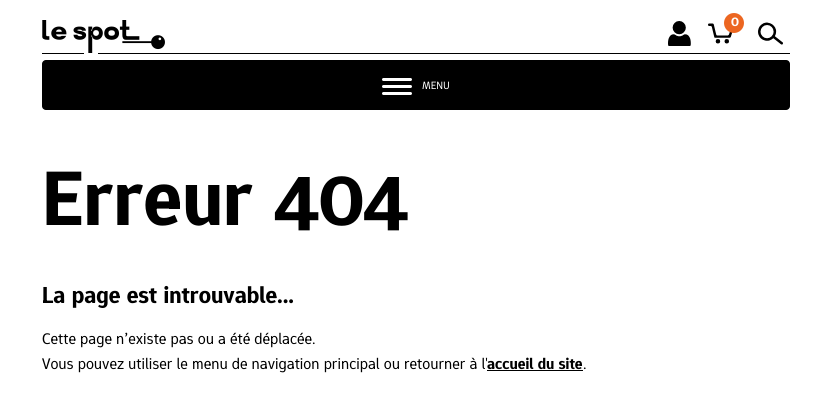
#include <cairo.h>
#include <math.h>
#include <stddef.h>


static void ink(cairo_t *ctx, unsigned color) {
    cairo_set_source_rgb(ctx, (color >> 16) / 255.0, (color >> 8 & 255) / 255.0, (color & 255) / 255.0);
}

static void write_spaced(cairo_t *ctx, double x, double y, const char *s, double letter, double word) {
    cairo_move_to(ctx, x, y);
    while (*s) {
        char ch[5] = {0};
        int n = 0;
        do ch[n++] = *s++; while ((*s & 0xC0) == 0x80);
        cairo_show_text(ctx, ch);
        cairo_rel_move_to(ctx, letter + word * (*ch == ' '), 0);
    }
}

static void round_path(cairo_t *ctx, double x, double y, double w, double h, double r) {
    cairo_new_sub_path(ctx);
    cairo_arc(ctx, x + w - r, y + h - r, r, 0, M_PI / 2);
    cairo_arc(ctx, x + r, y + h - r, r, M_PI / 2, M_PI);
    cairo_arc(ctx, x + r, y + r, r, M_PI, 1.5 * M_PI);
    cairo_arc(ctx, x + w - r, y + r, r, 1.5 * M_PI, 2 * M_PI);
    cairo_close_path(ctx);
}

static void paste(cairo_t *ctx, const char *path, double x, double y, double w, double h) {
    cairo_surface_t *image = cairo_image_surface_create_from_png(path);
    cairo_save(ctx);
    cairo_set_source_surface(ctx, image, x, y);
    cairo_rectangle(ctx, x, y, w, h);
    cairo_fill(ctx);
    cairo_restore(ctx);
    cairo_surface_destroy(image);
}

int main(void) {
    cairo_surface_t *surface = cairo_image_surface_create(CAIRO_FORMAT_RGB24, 832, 402);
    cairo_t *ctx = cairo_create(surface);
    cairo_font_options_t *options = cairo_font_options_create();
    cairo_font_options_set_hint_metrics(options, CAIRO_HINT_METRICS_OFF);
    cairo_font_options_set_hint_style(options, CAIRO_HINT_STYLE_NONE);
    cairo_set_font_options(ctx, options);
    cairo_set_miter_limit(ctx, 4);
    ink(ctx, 0xFFFFFF);
    cairo_paint(ctx);
    ink(ctx, 0x000000);
    cairo_rectangle(ctx, 42, 53, 748, 1);
    cairo_fill(ctx);
    paste(ctx, "media/1.png", 42, 20, 123, 33);
    paste(ctx, "media/2.png", 668, 21, 23, 25);
    paste(ctx, "media/3.png", 708, 23, 25, 21);
    ink(ctx, 0xEC6621);
    cairo_arc(ctx, 734, 23, 10, 0, 2 * M_PI);
    cairo_fill(ctx);
    cairo_select_font_face(ctx, "Epunda Sans Light", CAIRO_FONT_SLANT_NORMAL, CAIRO_FONT_WEIGHT_NORMAL);
    cairo_set_font_size(ctx, 14);
    ink(ctx, 0xFFFFFF);
    write_spaced(ctx, 731, 26, "0", -1, 0);
    paste(ctx, "media/4.png", 758, 22, 25, 23);
    ink(ctx, 0x000000);
    round_path(ctx, 42, 60, 748, 50, 4);
    cairo_fill(ctx);
    ink(ctx, 0xFFFFFF);
    round_path(ctx, 382, 78, 30, 3, 1.5);
    cairo_fill(ctx);
    round_path(ctx, 382, 85, 30, 3, 1.5);
    cairo_fill(ctx);
    round_path(ctx, 382, 92, 30, 3, 1.5);
    cairo_fill(ctx);
    cairo_select_font_face(ctx, "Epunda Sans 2 Light", CAIRO_FONT_SLANT_NORMAL, CAIRO_FONT_WEIGHT_NORMAL);
    cairo_set_font_size(ctx, 11);
    cairo_move_to(ctx, 422, 89);
    cairo_show_text(ctx, "MENU");
    cairo_rectangle(ctx, 84, 53, 14, 1);
    cairo_fill(ctx);
    cairo_select_font_face(ctx, "Epunda Sans Light", CAIRO_FONT_SLANT_NORMAL, CAIRO_FONT_WEIGHT_NORMAL);
    cairo_set_font_size(ctx, 80);
    ink(ctx, 0x000000);
    cairo_move_to(ctx, 42, 225);
    cairo_show_text(ctx, "Erreur 404");
    cairo_set_font_size(ctx, 24);
    cairo_move_to(ctx, 42, 303);
    cairo_show_text(ctx, "La page est introuvable...");
    cairo_select_font_face(ctx, "Epunda Sans 2 Light", CAIRO_FONT_SLANT_NORMAL, CAIRO_FONT_WEIGHT_NORMAL);
    cairo_set_font_size(ctx, 16);
    cairo_move_to(ctx, 42, 344);
    cairo_show_text(ctx, "Cette page n’existe pas ou a été déplacée.");
    cairo_move_to(ctx, 42, 369);
    cairo_show_text(ctx, "Vous pouvez utiliser le menu de navigation principal ou retourner à l'");
    cairo_select_font_face(ctx, "Epunda Sans Light", CAIRO_FONT_SLANT_NORMAL, CAIRO_FONT_WEIGHT_NORMAL);
    cairo_move_to(ctx, 487, 369);
    cairo_show_text(ctx, "accueil du site");
    cairo_rectangle(ctx, 487, 370, 96, 1);
    cairo_fill(ctx);
    cairo_select_font_face(ctx, "Epunda Sans 2 Light", CAIRO_FONT_SLANT_NORMAL, CAIRO_FONT_WEIGHT_NORMAL);
    cairo_move_to(ctx, 583, 369);
    cairo_show_text(ctx, ".");
    cairo_surface_write_to_png(surface, "image.png");
    cairo_font_options_destroy(options);
    cairo_destroy(ctx);
    cairo_surface_destroy(surface);
    return 0;
}
